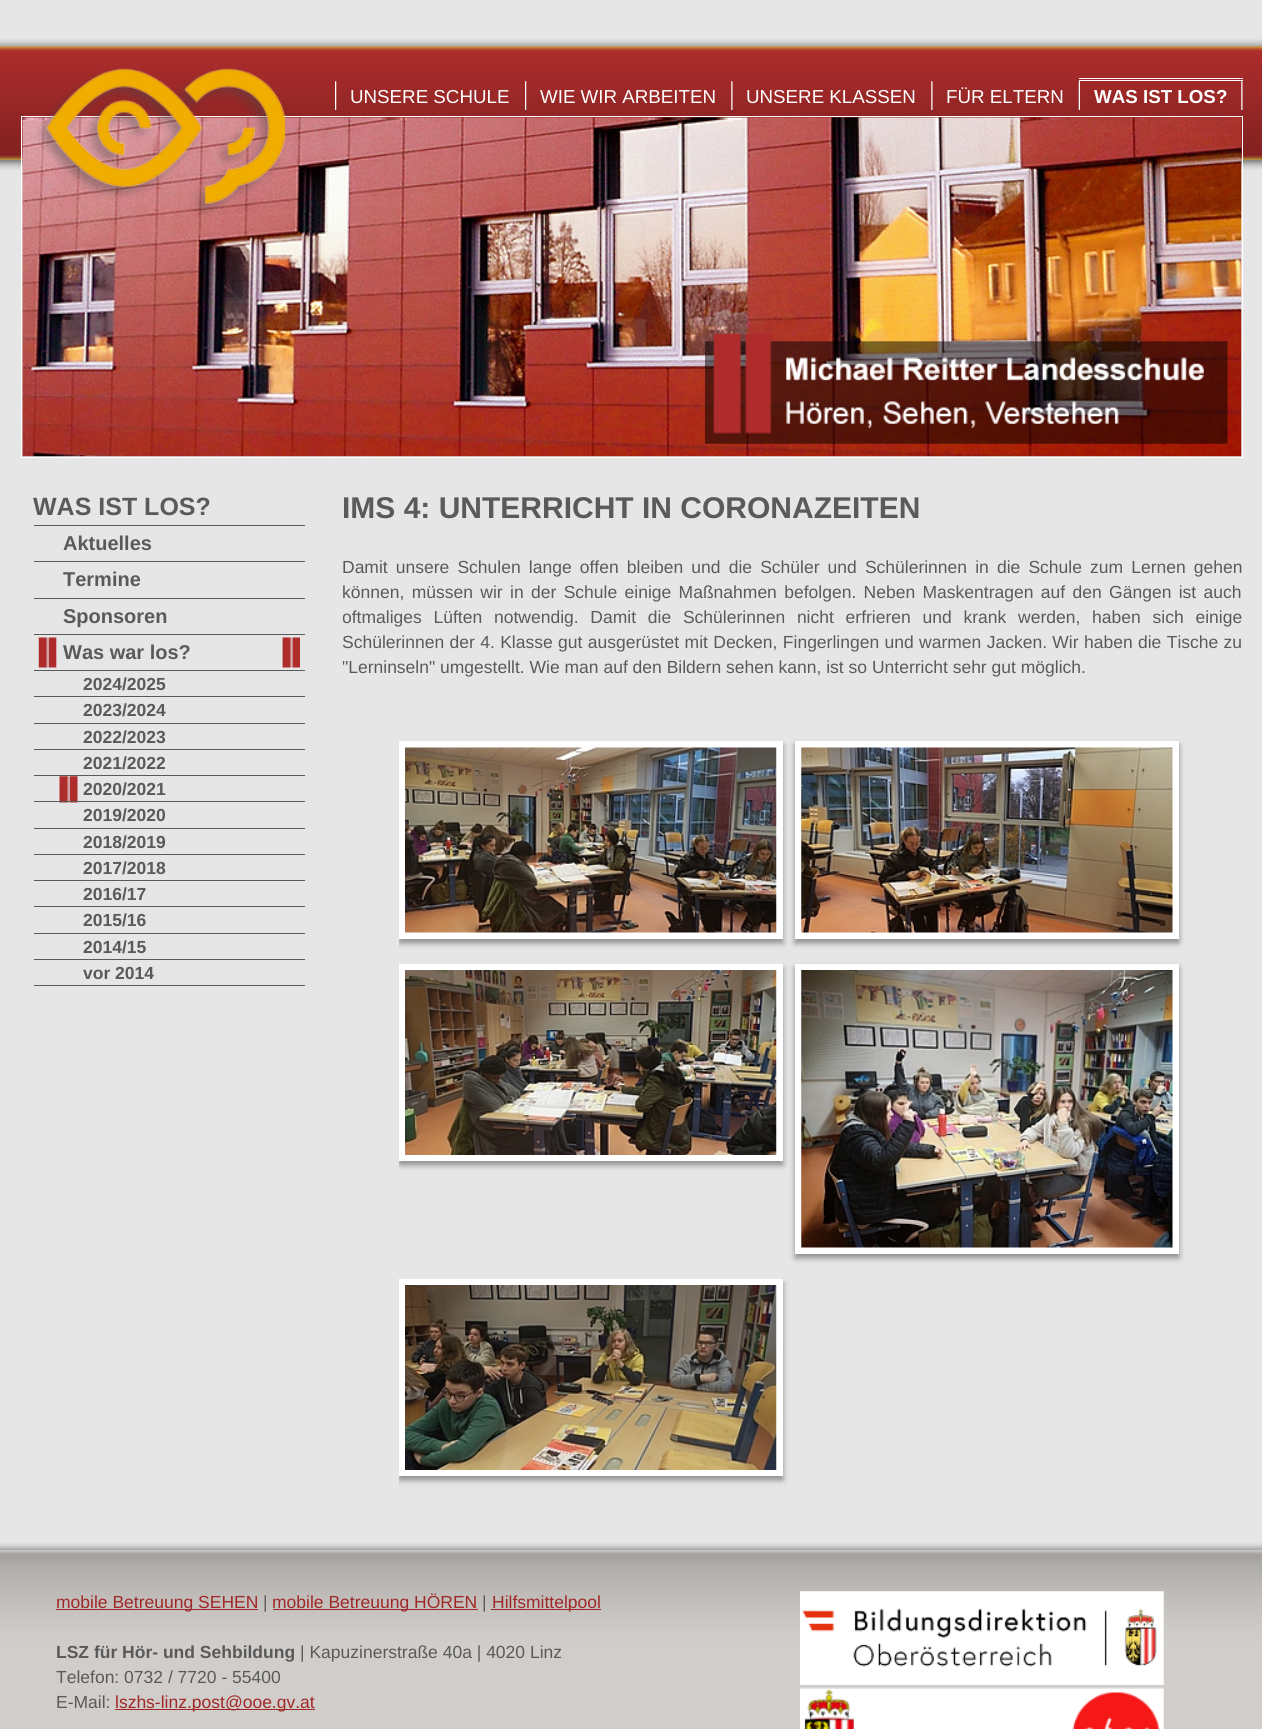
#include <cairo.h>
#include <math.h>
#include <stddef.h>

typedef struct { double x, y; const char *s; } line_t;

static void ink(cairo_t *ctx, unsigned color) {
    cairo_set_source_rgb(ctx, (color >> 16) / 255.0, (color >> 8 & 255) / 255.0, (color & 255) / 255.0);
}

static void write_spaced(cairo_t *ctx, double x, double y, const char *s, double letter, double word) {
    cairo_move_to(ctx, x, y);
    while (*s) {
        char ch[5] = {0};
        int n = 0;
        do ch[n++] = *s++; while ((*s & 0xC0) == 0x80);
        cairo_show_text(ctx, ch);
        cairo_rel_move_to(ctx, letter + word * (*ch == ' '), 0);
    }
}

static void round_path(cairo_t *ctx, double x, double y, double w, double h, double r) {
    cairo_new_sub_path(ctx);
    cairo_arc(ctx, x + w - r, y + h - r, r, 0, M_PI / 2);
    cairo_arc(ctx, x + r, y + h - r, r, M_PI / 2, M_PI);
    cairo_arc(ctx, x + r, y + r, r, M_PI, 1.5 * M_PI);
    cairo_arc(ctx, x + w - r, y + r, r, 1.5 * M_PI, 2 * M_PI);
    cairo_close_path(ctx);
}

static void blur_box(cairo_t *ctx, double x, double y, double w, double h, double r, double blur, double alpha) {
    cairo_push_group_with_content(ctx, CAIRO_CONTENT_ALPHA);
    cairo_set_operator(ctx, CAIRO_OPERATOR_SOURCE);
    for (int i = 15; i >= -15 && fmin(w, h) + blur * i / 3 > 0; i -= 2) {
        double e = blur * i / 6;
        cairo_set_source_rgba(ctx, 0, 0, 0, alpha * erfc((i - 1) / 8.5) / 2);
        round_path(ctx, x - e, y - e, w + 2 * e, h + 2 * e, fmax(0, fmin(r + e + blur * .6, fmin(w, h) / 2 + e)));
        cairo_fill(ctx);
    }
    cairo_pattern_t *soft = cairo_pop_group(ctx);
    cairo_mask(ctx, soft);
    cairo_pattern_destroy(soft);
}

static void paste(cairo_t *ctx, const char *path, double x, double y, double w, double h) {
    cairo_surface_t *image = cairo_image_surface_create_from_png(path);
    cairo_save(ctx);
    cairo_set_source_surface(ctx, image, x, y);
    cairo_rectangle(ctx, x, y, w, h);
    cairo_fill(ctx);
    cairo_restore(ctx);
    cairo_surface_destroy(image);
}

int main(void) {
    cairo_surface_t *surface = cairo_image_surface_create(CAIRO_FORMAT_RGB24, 1262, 1729);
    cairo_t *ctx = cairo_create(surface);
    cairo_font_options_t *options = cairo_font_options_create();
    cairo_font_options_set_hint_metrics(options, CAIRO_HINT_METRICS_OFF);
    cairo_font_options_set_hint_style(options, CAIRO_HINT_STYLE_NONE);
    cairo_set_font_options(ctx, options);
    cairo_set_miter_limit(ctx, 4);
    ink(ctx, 0xE6E6E6);
    cairo_paint(ctx);
    paste(ctx, "media/1.png", 0, 39, 1262, 131);
    cairo_rectangle(ctx, 21.5, 116.5, 1221, 341);
    ink(ctx, 0xFFFFFF);
    cairo_set_line_width(ctx, 1);
    cairo_stroke(ctx);
    paste(ctx, "media/6.png", 22, 117, 1220, 340);
    paste(ctx, "media/2.png", 36, 68, 250, 147);
    paste(ctx, "media/3.png", 1241, 81, 2, 29);
    paste(ctx, "media/4.png", 335, 81, 2, 29);
    cairo_select_font_face(ctx, "Liberation Sans", CAIRO_FONT_SLANT_NORMAL, CAIRO_FONT_WEIGHT_NORMAL);
    cairo_set_font_size(ctx, 18.75);
    cairo_move_to(ctx, 350, 103);
    cairo_show_text(ctx, "UNSERE SCHULE");
    paste(ctx, "media/4.png", 525, 81, 2, 29);
    cairo_move_to(ctx, 540, 103);
    cairo_show_text(ctx, "WIE WIR ARBEITEN");
    paste(ctx, "media/3.png", 731, 81, 2, 29);
    cairo_move_to(ctx, 746, 103);
    cairo_show_text(ctx, "UNSERE KLASSEN");
    paste(ctx, "media/3.png", 931, 81, 2, 29);
    cairo_move_to(ctx, 946, 103);
    cairo_show_text(ctx, "FÜR ELTERN");
    paste(ctx, "media/5.png", 1078, 81, 2, 29);
    cairo_rectangle(ctx, 1079, 78, 164, 1);
    cairo_fill(ctx);
    cairo_rectangle(ctx, 1079, 80, 164, 1);
    cairo_fill(ctx);
    cairo_select_font_face(ctx, "Liberation Sans", CAIRO_FONT_SLANT_NORMAL, CAIRO_FONT_WEIGHT_BOLD);
    cairo_move_to(ctx, 1094, 103);
    cairo_show_text(ctx, "WAS IST LOS?");
    paste(ctx, "media/7.png", 705, 333, 523, 111);
    ink(ctx, 0x5A5A5A);
    cairo_rectangle(ctx, 34, 525, 271, 1);
    cairo_fill(ctx);
    cairo_set_font_size(ctx, 25);
    cairo_move_to(ctx, 33, 515);
    cairo_show_text(ctx, "WAS IST LOS?");
    cairo_rectangle(ctx, 34, 561, 271, 1);
    cairo_fill(ctx);
    cairo_set_font_size(ctx, 20);
    cairo_move_to(ctx, 63, 550);
    cairo_show_text(ctx, "Aktuelles");
    cairo_rectangle(ctx, 34, 598, 271, 1);
    cairo_fill(ctx);
    cairo_move_to(ctx, 63, 586);
    cairo_show_text(ctx, "Termine");
    cairo_rectangle(ctx, 34, 634, 271, 1);
    cairo_fill(ctx);
    cairo_move_to(ctx, 63, 623);
    cairo_show_text(ctx, "Sponsoren");
    paste(ctx, "media/8.png", 38, 637, 262, 31);
    cairo_rectangle(ctx, 34, 670, 271, 1);
    cairo_fill(ctx);
    cairo_move_to(ctx, 63, 659);
    cairo_show_text(ctx, "Was war los?");
    cairo_rectangle(ctx, 34, 696, 271, 1);
    cairo_fill(ctx);
    cairo_set_font_size(ctx, 17.5);
    cairo_move_to(ctx, 83, 690);
    cairo_show_text(ctx, "2024/2025");
    cairo_rectangle(ctx, 34, 723, 271, 1);
    cairo_fill(ctx);
    cairo_move_to(ctx, 83, 716);
    cairo_show_text(ctx, "2023/2024");
    cairo_rectangle(ctx, 34, 749, 271, 1);
    cairo_fill(ctx);
    cairo_move_to(ctx, 83, 743);
    cairo_show_text(ctx, "2022/2023");
    cairo_rectangle(ctx, 34, 775, 271, 1);
    cairo_fill(ctx);
    cairo_move_to(ctx, 83, 769);
    cairo_show_text(ctx, "2021/2022");
    paste(ctx, "media/9.png", 59, 776, 19, 27);
    cairo_rectangle(ctx, 34, 801, 271, 1);
    cairo_fill(ctx);
    cairo_move_to(ctx, 83, 795);
    cairo_show_text(ctx, "2020/2021");
    cairo_rectangle(ctx, 34, 828, 271, 1);
    cairo_fill(ctx);
    cairo_move_to(ctx, 83, 821);
    cairo_show_text(ctx, "2019/2020");
    cairo_rectangle(ctx, 34, 854, 271, 1);
    cairo_fill(ctx);
    cairo_move_to(ctx, 83, 848);
    cairo_show_text(ctx, "2018/2019");
    cairo_rectangle(ctx, 34, 880, 271, 1);
    cairo_fill(ctx);
    cairo_move_to(ctx, 83, 874);
    cairo_show_text(ctx, "2017/2018");
    cairo_rectangle(ctx, 34, 906, 271, 1);
    cairo_fill(ctx);
    cairo_move_to(ctx, 83, 900);
    cairo_show_text(ctx, "2016/17");
    cairo_rectangle(ctx, 34, 933, 271, 1);
    cairo_fill(ctx);
    cairo_move_to(ctx, 83, 926);
    cairo_show_text(ctx, "2015/16");
    cairo_rectangle(ctx, 34, 959, 271, 1);
    cairo_fill(ctx);
    cairo_move_to(ctx, 83, 953);
    cairo_show_text(ctx, "2014/15");
    cairo_rectangle(ctx, 34, 985, 271, 1);
    cairo_fill(ctx);
    cairo_move_to(ctx, 83, 979);
    cairo_show_text(ctx, "vor 2014");
    cairo_set_font_size(ctx, 30);
    cairo_move_to(ctx, 342, 518);
    cairo_show_text(ctx, "IMS 4: UNTERRICHT IN CORONAZEITEN");
    cairo_select_font_face(ctx, "Liberation Sans", CAIRO_FONT_SLANT_NORMAL, CAIRO_FONT_WEIGHT_NORMAL);
    cairo_set_font_size(ctx, 17.5);
    write_spaced(ctx, 342, 573, "Damit unsere Schulen lange offen bleiben und die Schüler und Schülerinnen in die Schule zum Lernen gehen", 0, 3.25);
    write_spaced(ctx, 342, 598, "können, müssen wir in der Schule einige Maßnahmen befolgen. Neben Maskentragen auf den Gängen ist auch", 0, 2.5);
    cairo_save(ctx);
    cairo_rectangle(ctx, 343, 529, 900, 960);
    cairo_clip(ctx);
    write_spaced(ctx, 342, 623, "oftmaliges Lüften notwendig. Damit die Schülerinnen nicht erfrieren und krank werden, haben sich einige", 0, 6.9);
    cairo_restore(ctx);
    write_spaced(ctx, 342, 648, "Schülerinnen der 4. Klasse gut ausgerüstet mit Decken, Fingerlingen und warmen Jacken. Wir haben die Tische zu", 0, 0.5);
    cairo_save(ctx);
    cairo_rectangle(ctx, 343, 529, 900, 960);
    cairo_clip(ctx);
    cairo_move_to(ctx, 342, 673);
    cairo_show_text(ctx, "\"Lerninseln\" umgestellt. Wie man auf den Bildern sehen kann, ist so Unterricht sehr gut möglich.");
    cairo_restore(ctx);
    cairo_save(ctx);
    cairo_rectangle(ctx, 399, 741, 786, 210);
    cairo_clip(ctx);
    ink(ctx, 0x323232);
    blur_box(ctx, 399, 745, 384, 198, 0, 3, 0.5);
    cairo_restore(ctx);
    ink(ctx, 0xFFFFFF);
    cairo_rectangle(ctx, 399, 741, 384, 198);
    cairo_fill(ctx);
    paste(ctx, "media/10.png", 405, 747, 372, 186);
    ink(ctx, 0x323232);
    blur_box(ctx, 795, 745, 384, 198, 0, 3, 0.5);
    ink(ctx, 0xFFFFFF);
    cairo_rectangle(ctx, 795, 741, 384, 198);
    cairo_fill(ctx);
    paste(ctx, "media/11.png", 801, 747, 372, 186);
    cairo_save(ctx);
    cairo_rectangle(ctx, 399, 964, 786, 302);
    cairo_clip(ctx);
    ink(ctx, 0x323232);
    blur_box(ctx, 399, 968, 384, 197, 0, 3, 0.5);
    cairo_restore(ctx);
    cairo_rectangle(ctx, 399, 964, 384, 197);
    cairo_fill(ctx);
    paste(ctx, "media/12.png", 405, 970, 372, 185);
    ink(ctx, 0x323232);
    blur_box(ctx, 795, 968, 384, 290, 0, 3, 0.5);
    ink(ctx, 0xFFFFFF);
    cairo_rectangle(ctx, 795, 964, 384, 290);
    cairo_fill(ctx);
    paste(ctx, "media/13.png", 801, 970, 372, 278);
    cairo_save(ctx);
    cairo_rectangle(ctx, 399, 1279, 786, 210);
    cairo_clip(ctx);
    ink(ctx, 0x323232);
    blur_box(ctx, 399, 1283, 384, 197, 0, 3, 0.5);
    cairo_restore(ctx);
    cairo_rectangle(ctx, 399, 1279, 384, 197);
    cairo_fill(ctx);
    paste(ctx, "media/14.png", 405, 1285, 372, 185);
    paste(ctx, "media/15.png", 0, 1543, 1262, 186);
    ink(ctx, 0x9F2928);
    cairo_rectangle(ctx, 56, 1609, 202, 1);
    cairo_fill(ctx);
    cairo_move_to(ctx, 56, 1608);
    cairo_show_text(ctx, "mobile Betreuung SEHEN");
    ink(ctx, 0x5A5A5A);
    cairo_move_to(ctx, 263, 1608);
    cairo_show_text(ctx, "|");
    ink(ctx, 0x9F2928);
    cairo_rectangle(ctx, 273, 1609, 205, 1);
    cairo_fill(ctx);
    cairo_move_to(ctx, 272, 1608);
    cairo_show_text(ctx, "mobile Betreuung HÖREN");
    ink(ctx, 0x5A5A5A);
    cairo_move_to(ctx, 482, 1608);
    cairo_show_text(ctx, "|");
    ink(ctx, 0x9F2928);
    cairo_rectangle(ctx, 491, 1609, 110, 1);
    cairo_fill(ctx);
    cairo_move_to(ctx, 492, 1608);
    cairo_show_text(ctx, "Hilfsmittelpool");
    cairo_select_font_face(ctx, "Liberation Sans", CAIRO_FONT_SLANT_NORMAL, CAIRO_FONT_WEIGHT_BOLD);
    ink(ctx, 0x5A5A5A);
    cairo_move_to(ctx, 56, 1658);
    cairo_show_text(ctx, "LSZ für Hör- und Sehbildung");
    cairo_select_font_face(ctx, "Liberation Sans", CAIRO_FONT_SLANT_NORMAL, CAIRO_FONT_WEIGHT_NORMAL);
    {
        static const line_t items[] = {
            {300, 1658, "| Kapuzinerstraße 40a | 4020 Linz"},
            {56, 1683, "Telefon: 0732 / 7720 - 55400"},
            {56, 1708, "E-Mail:"},
        };
        for (size_t i = 0; i < sizeof items / sizeof *items; i++) {
            cairo_move_to(ctx, items[i].x, items[i].y);
            cairo_show_text(ctx, items[i].s);
        }
    }
    ink(ctx, 0x9F2928);
    cairo_rectangle(ctx, 115, 1709, 200, 1);
    cairo_fill(ctx);
    cairo_move_to(ctx, 115, 1708);
    cairo_show_text(ctx, "lszhs-linz.post@ooe.gv.at");
    paste(ctx, "media/16.png", 800, 1591, 364, 94);
    paste(ctx, "media/17.png", 800, 1687, 364, 42);
    cairo_surface_write_to_png(surface, "image.png");
    cairo_font_options_destroy(options);
    cairo_destroy(ctx);
    cairo_surface_destroy(surface);
    return 0;
}
